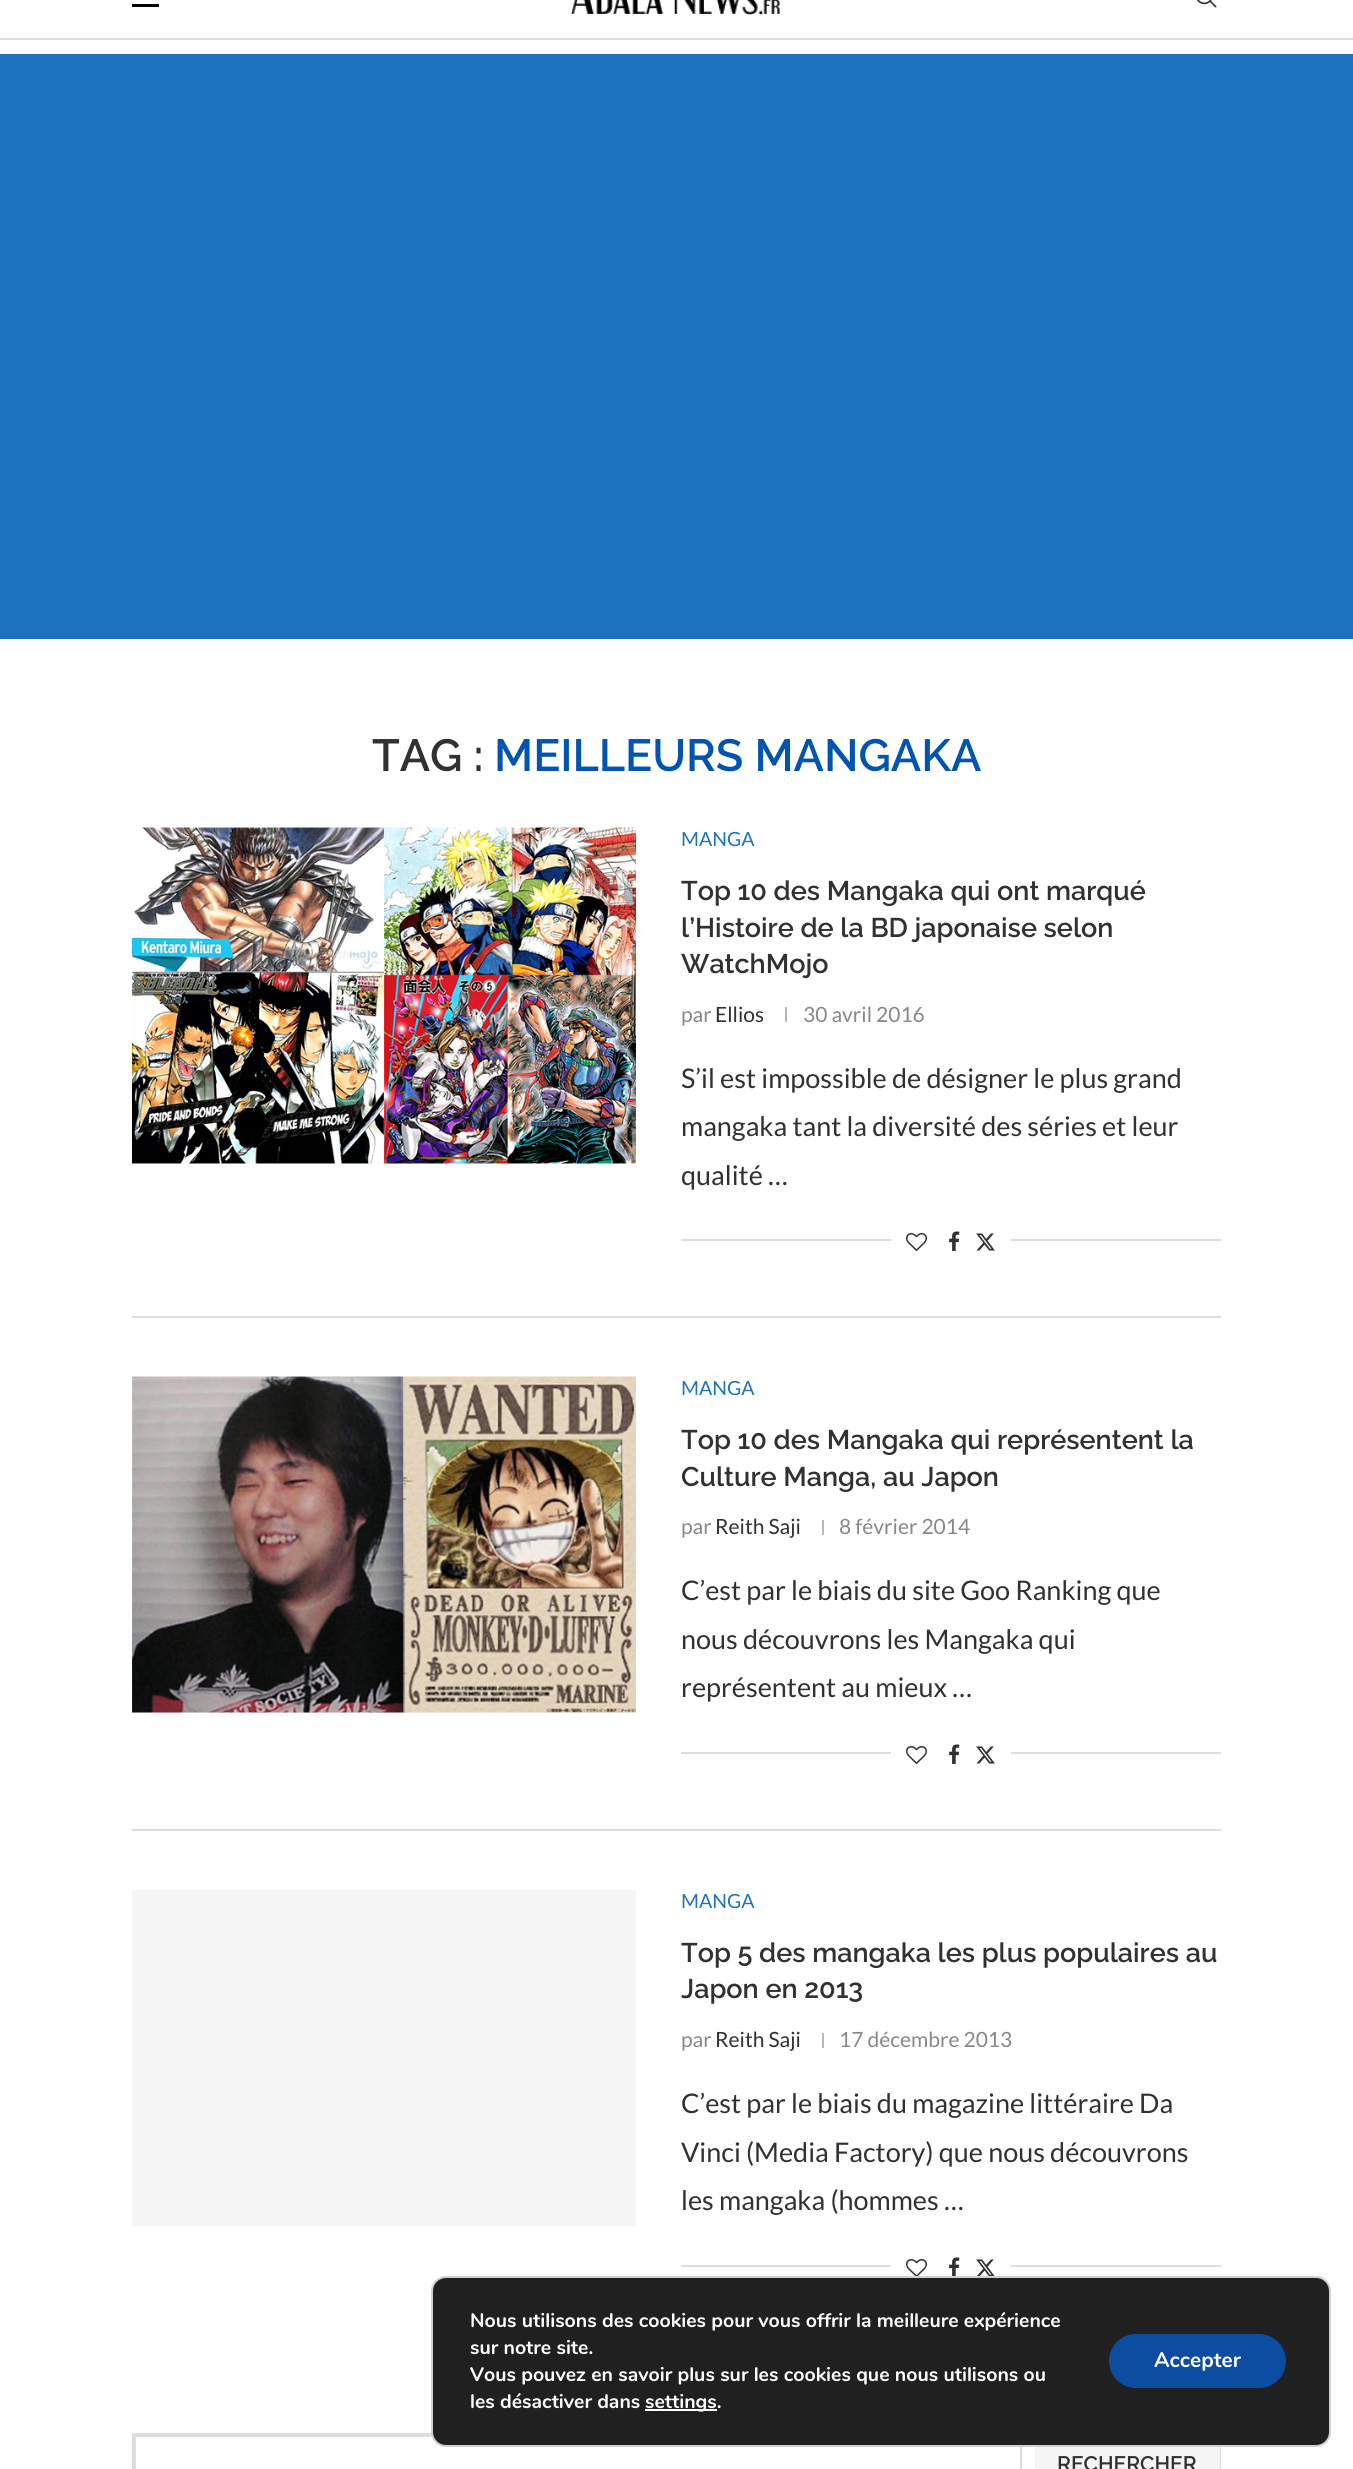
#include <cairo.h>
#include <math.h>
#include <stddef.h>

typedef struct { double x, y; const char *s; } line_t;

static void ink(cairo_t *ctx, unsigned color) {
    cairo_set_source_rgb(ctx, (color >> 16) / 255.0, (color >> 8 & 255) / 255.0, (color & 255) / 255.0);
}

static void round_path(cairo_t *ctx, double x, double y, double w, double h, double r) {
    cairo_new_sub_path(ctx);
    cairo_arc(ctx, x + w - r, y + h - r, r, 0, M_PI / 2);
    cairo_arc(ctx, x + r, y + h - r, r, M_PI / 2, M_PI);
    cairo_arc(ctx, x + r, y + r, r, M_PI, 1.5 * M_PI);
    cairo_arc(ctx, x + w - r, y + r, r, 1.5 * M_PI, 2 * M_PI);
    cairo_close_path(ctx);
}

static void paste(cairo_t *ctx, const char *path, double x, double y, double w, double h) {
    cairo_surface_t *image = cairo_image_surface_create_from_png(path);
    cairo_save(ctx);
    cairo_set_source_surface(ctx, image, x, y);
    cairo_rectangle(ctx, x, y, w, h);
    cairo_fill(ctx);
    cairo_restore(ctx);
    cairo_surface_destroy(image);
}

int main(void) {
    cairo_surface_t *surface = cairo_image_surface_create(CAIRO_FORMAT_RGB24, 1353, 2469);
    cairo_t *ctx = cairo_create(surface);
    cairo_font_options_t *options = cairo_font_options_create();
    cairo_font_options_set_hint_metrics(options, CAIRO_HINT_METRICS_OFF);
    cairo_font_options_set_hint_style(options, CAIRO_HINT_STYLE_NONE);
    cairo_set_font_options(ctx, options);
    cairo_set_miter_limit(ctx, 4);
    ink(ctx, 0xFFFFFF);
    cairo_paint(ctx);
    ink(ctx, 0xDEDEDE);
    cairo_rectangle(ctx, 0, 38, 1353, 2);
    cairo_fill(ctx);
    ink(ctx, 0x000000);
    cairo_rectangle(ctx, 132, 4, 27, 3);
    cairo_fill(ctx);
    paste(ctx, "media/1.png", 571, 0, 209, 16);
    paste(ctx, "media/2.png", 1197, 0, 20, 8);
    ink(ctx, 0x1E73BE);
    cairo_rectangle(ctx, 0, 54, 1353, 585);
    cairo_fill(ctx);
    cairo_select_font_face(ctx, "Raleway SemiBold", CAIRO_FONT_SLANT_NORMAL, CAIRO_FONT_WEIGHT_NORMAL);
    cairo_set_font_size(ctx, 45);
    ink(ctx, 0x313131);
    cairo_move_to(ctx, 372, 771);
    cairo_show_text(ctx, "TAG :");
    ink(ctx, 0x0154B2);
    cairo_move_to(ctx, 494, 771);
    cairo_show_text(ctx, "MEILLEURS MANGAKA");
    ink(ctx, 0xDEDEDE);
    cairo_rectangle(ctx, 132, 1316, 1089, 2);
    cairo_fill(ctx);
    ink(ctx, 0xF5F5F5);
    cairo_rectangle(ctx, 132, 1163, 504, 1);
    cairo_fill(ctx);
    paste(ctx, "media/3.png", 132, 827, 504, 337);
    cairo_select_font_face(ctx, "Lato", CAIRO_FONT_SLANT_NORMAL, CAIRO_FONT_WEIGHT_NORMAL);
    cairo_set_font_size(ctx, 19.5);
    ink(ctx, 0x1E73BE);
    cairo_move_to(ctx, 681, 846);
    cairo_show_text(ctx, "MANGA");
    cairo_select_font_face(ctx, "Raleway SemiBold", CAIRO_FONT_SLANT_NORMAL, CAIRO_FONT_WEIGHT_NORMAL);
    cairo_set_font_size(ctx, 27);
    ink(ctx, 0x313131);
    {
        static const line_t items[] = {
            {681, 900, "Top 10 des Mangaka qui ont marqué"},
            {681, 937, "l’Histoire de la BD japonaise selon"},
            {681, 973, "WatchMojo"},
        };
        for (size_t i = 0; i < sizeof items / sizeof *items; i++) {
            cairo_move_to(ctx, items[i].x, items[i].y);
            cairo_show_text(ctx, items[i].s);
        }
    }
    cairo_select_font_face(ctx, "Lato", CAIRO_FONT_SLANT_NORMAL, CAIRO_FONT_WEIGHT_NORMAL);
    cairo_set_font_size(ctx, 21);
    ink(ctx, 0x888888);
    cairo_move_to(ctx, 681, 1022);
    cairo_show_text(ctx, "par");
    ink(ctx, 0x313131);
    cairo_move_to(ctx, 715, 1022);
    cairo_show_text(ctx, "Ellios");
    ink(ctx, 0xB8B8B8);
    cairo_rectangle(ctx, 785, 1007, 2, 15);
    cairo_fill(ctx);
    ink(ctx, 0x888888);
    cairo_move_to(ctx, 803, 1022);
    cairo_show_text(ctx, "30 avril 2016");
    cairo_set_font_size(ctx, 27);
    ink(ctx, 0x313131);
    {
        static const line_t items[] = {
            {681, 1088, "S’il est impossible de désigner le plus grand"},
            {681, 1136, "mangaka tant la diversité des séries et leur"},
            {681, 1185, "qualité …"},
        };
        for (size_t i = 0; i < sizeof items / sizeof *items; i++) {
            cairo_move_to(ctx, items[i].x, items[i].y);
            cairo_show_text(ctx, items[i].s);
        }
    }
    ink(ctx, 0xDEDEDE);
    cairo_rectangle(ctx, 681, 1239, 540, 2);
    cairo_fill(ctx);
    ink(ctx, 0xFFFFFF);
    cairo_rectangle(ctx, 891, 1239, 120, 2);
    cairo_fill(ctx);
    paste(ctx, "media/4.png", 906, 1233, 21, 18);
    paste(ctx, "media/5.png", 949, 1231, 11, 20);
    paste(ctx, "media/6.png", 976, 1233, 19, 18);
    ink(ctx, 0xDEDEDE);
    cairo_rectangle(ctx, 132, 1829, 1089, 2);
    cairo_fill(ctx);
    ink(ctx, 0xF5F5F5);
    cairo_rectangle(ctx, 132, 1712, 504, 1);
    cairo_fill(ctx);
    paste(ctx, "media/7.png", 132, 1376, 504, 337);
    cairo_set_font_size(ctx, 19.5);
    ink(ctx, 0x1E73BE);
    cairo_move_to(ctx, 681, 1395);
    cairo_show_text(ctx, "MANGA");
    cairo_select_font_face(ctx, "Raleway SemiBold", CAIRO_FONT_SLANT_NORMAL, CAIRO_FONT_WEIGHT_NORMAL);
    cairo_set_font_size(ctx, 27);
    ink(ctx, 0x313131);
    cairo_move_to(ctx, 681, 1449);
    cairo_show_text(ctx, "Top 10 des Mangaka qui représentent la");
    cairo_move_to(ctx, 681, 1486);
    cairo_show_text(ctx, "Culture Manga, au Japon");
    cairo_select_font_face(ctx, "Lato", CAIRO_FONT_SLANT_NORMAL, CAIRO_FONT_WEIGHT_NORMAL);
    cairo_set_font_size(ctx, 21);
    ink(ctx, 0x888888);
    cairo_move_to(ctx, 681, 1534);
    cairo_show_text(ctx, "par");
    ink(ctx, 0x313131);
    cairo_move_to(ctx, 715, 1534);
    cairo_show_text(ctx, "Reith Saji");
    ink(ctx, 0xB8B8B8);
    cairo_rectangle(ctx, 822, 1520, 2, 15);
    cairo_fill(ctx);
    ink(ctx, 0x888888);
    cairo_move_to(ctx, 839, 1534);
    cairo_show_text(ctx, "8 février 2014");
    cairo_set_font_size(ctx, 27);
    ink(ctx, 0x313131);
    {
        static const line_t items[] = {
            {681, 1600, "C’est par le biais du site Goo Ranking que"},
            {681, 1649, "nous découvrons les Mangaka qui"},
            {681, 1697, "représentent au mieux …"},
        };
        for (size_t i = 0; i < sizeof items / sizeof *items; i++) {
            cairo_move_to(ctx, items[i].x, items[i].y);
            cairo_show_text(ctx, items[i].s);
        }
    }
    ink(ctx, 0xDEDEDE);
    cairo_rectangle(ctx, 681, 1752, 540, 2);
    cairo_fill(ctx);
    ink(ctx, 0xFFFFFF);
    cairo_rectangle(ctx, 891, 1752, 120, 2);
    cairo_fill(ctx);
    paste(ctx, "media/4.png", 906, 1746, 21, 18);
    paste(ctx, "media/5.png", 949, 1744, 11, 20);
    paste(ctx, "media/6.png", 976, 1746, 19, 18);
    ink(ctx, 0xF5F5F5);
    cairo_rectangle(ctx, 132, 1890, 504, 336);
    cairo_fill(ctx);
    cairo_set_font_size(ctx, 19.5);
    ink(ctx, 0x1E73BE);
    cairo_move_to(ctx, 681, 1908);
    cairo_show_text(ctx, "MANGA");
    cairo_select_font_face(ctx, "Raleway SemiBold", CAIRO_FONT_SLANT_NORMAL, CAIRO_FONT_WEIGHT_NORMAL);
    cairo_set_font_size(ctx, 27);
    ink(ctx, 0x313131);
    cairo_move_to(ctx, 681, 1962);
    cairo_show_text(ctx, "Top 5 des mangaka les plus populaires au");
    cairo_move_to(ctx, 681, 1998);
    cairo_show_text(ctx, "Japon en 2013");
    cairo_select_font_face(ctx, "Lato", CAIRO_FONT_SLANT_NORMAL, CAIRO_FONT_WEIGHT_NORMAL);
    cairo_set_font_size(ctx, 21);
    ink(ctx, 0x888888);
    cairo_move_to(ctx, 681, 2047);
    cairo_show_text(ctx, "par");
    ink(ctx, 0x313131);
    cairo_move_to(ctx, 715, 2047);
    cairo_show_text(ctx, "Reith Saji");
    ink(ctx, 0xB8B8B8);
    cairo_rectangle(ctx, 822, 2033, 2, 15);
    cairo_fill(ctx);
    ink(ctx, 0x888888);
    cairo_move_to(ctx, 839, 2047);
    cairo_show_text(ctx, "17 décembre 2013");
    cairo_set_font_size(ctx, 27);
    ink(ctx, 0x313131);
    {
        static const line_t items[] = {
            {681, 2113, "C’est par le biais du magazine littéraire Da"},
            {681, 2162, "Vinci (Media Factory) que nous découvrons"},
            {681, 2210, "les mangaka (hommes …"},
        };
        for (size_t i = 0; i < sizeof items / sizeof *items; i++) {
            cairo_move_to(ctx, items[i].x, items[i].y);
            cairo_show_text(ctx, items[i].s);
        }
    }
    ink(ctx, 0xDEDEDE);
    cairo_rectangle(ctx, 681, 2265, 540, 2);
    cairo_fill(ctx);
    ink(ctx, 0xFFFFFF);
    cairo_rectangle(ctx, 891, 2265, 120, 2);
    cairo_fill(ctx);
    paste(ctx, "media/8.png", 906, 2259, 21, 17);
    paste(ctx, "media/9.png", 949, 2257, 11, 19);
    paste(ctx, "media/10.png", 976, 2259, 19, 17);
    cairo_rectangle(ctx, 133, 2434, 1087, 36);
    ink(ctx, 0xDEDEDE);
    cairo_stroke(ctx);
    cairo_rectangle(ctx, 135, 2436, 886, 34);
    cairo_stroke(ctx);
    ink(ctx, 0xF5F5F5);
    cairo_rectangle(ctx, 1035, 2447, 185, 22);
    cairo_fill(ctx);
    cairo_select_font_face(ctx, "Raleway SemiBold", CAIRO_FONT_SLANT_NORMAL, CAIRO_FONT_WEIGHT_NORMAL);
    cairo_set_font_size(ctx, 21);
    ink(ctx, 0x313131);
    cairo_move_to(ctx, 1057, 2471);
    cairo_show_text(ctx, "RECHERCHER");
    ink(ctx, 0x202020);
    round_path(ctx, 432, 2277, 898, 169, 14);
    cairo_fill_preserve(ctx);
    ink(ctx, 0xD3CED2);
    cairo_stroke(ctx);
    cairo_select_font_face(ctx, "Nunito", CAIRO_FONT_SLANT_NORMAL, CAIRO_FONT_WEIGHT_BOLD);
    cairo_set_font_size(ctx, 19.5);
    ink(ctx, 0xFFFFFF);
    {
        static const line_t items[] = {
            {470, 2327, "Nous utilisons des cookies pour vous offrir la meilleure expérience"},
            {470, 2354, "sur notre site."},
            {470, 2381, "Vous pouvez en savoir plus sur les cookies que nous utilisons ou"},
            {470, 2408, "les désactiver dans"},
        };
        for (size_t i = 0; i < sizeof items / sizeof *items; i++) {
            cairo_move_to(ctx, items[i].x, items[i].y);
            cairo_show_text(ctx, items[i].s);
        }
    }
    cairo_rectangle(ctx, 645, 2409, 72, 2);
    cairo_fill(ctx);
    cairo_move_to(ctx, 645, 2408);
    cairo_show_text(ctx, "settings.");
    ink(ctx, 0x0C4DA2);
    round_path(ctx, 1109, 2334, 177, 54, 27);
    cairo_fill(ctx);
    cairo_set_font_size(ctx, 21);
    ink(ctx, 0xFFFFFF);
    cairo_move_to(ctx, 1154, 2367);
    cairo_show_text(ctx, "Accepter");
    cairo_surface_write_to_png(surface, "image.png");
    cairo_font_options_destroy(options);
    cairo_destroy(ctx);
    cairo_surface_destroy(surface);
    return 0;
}
